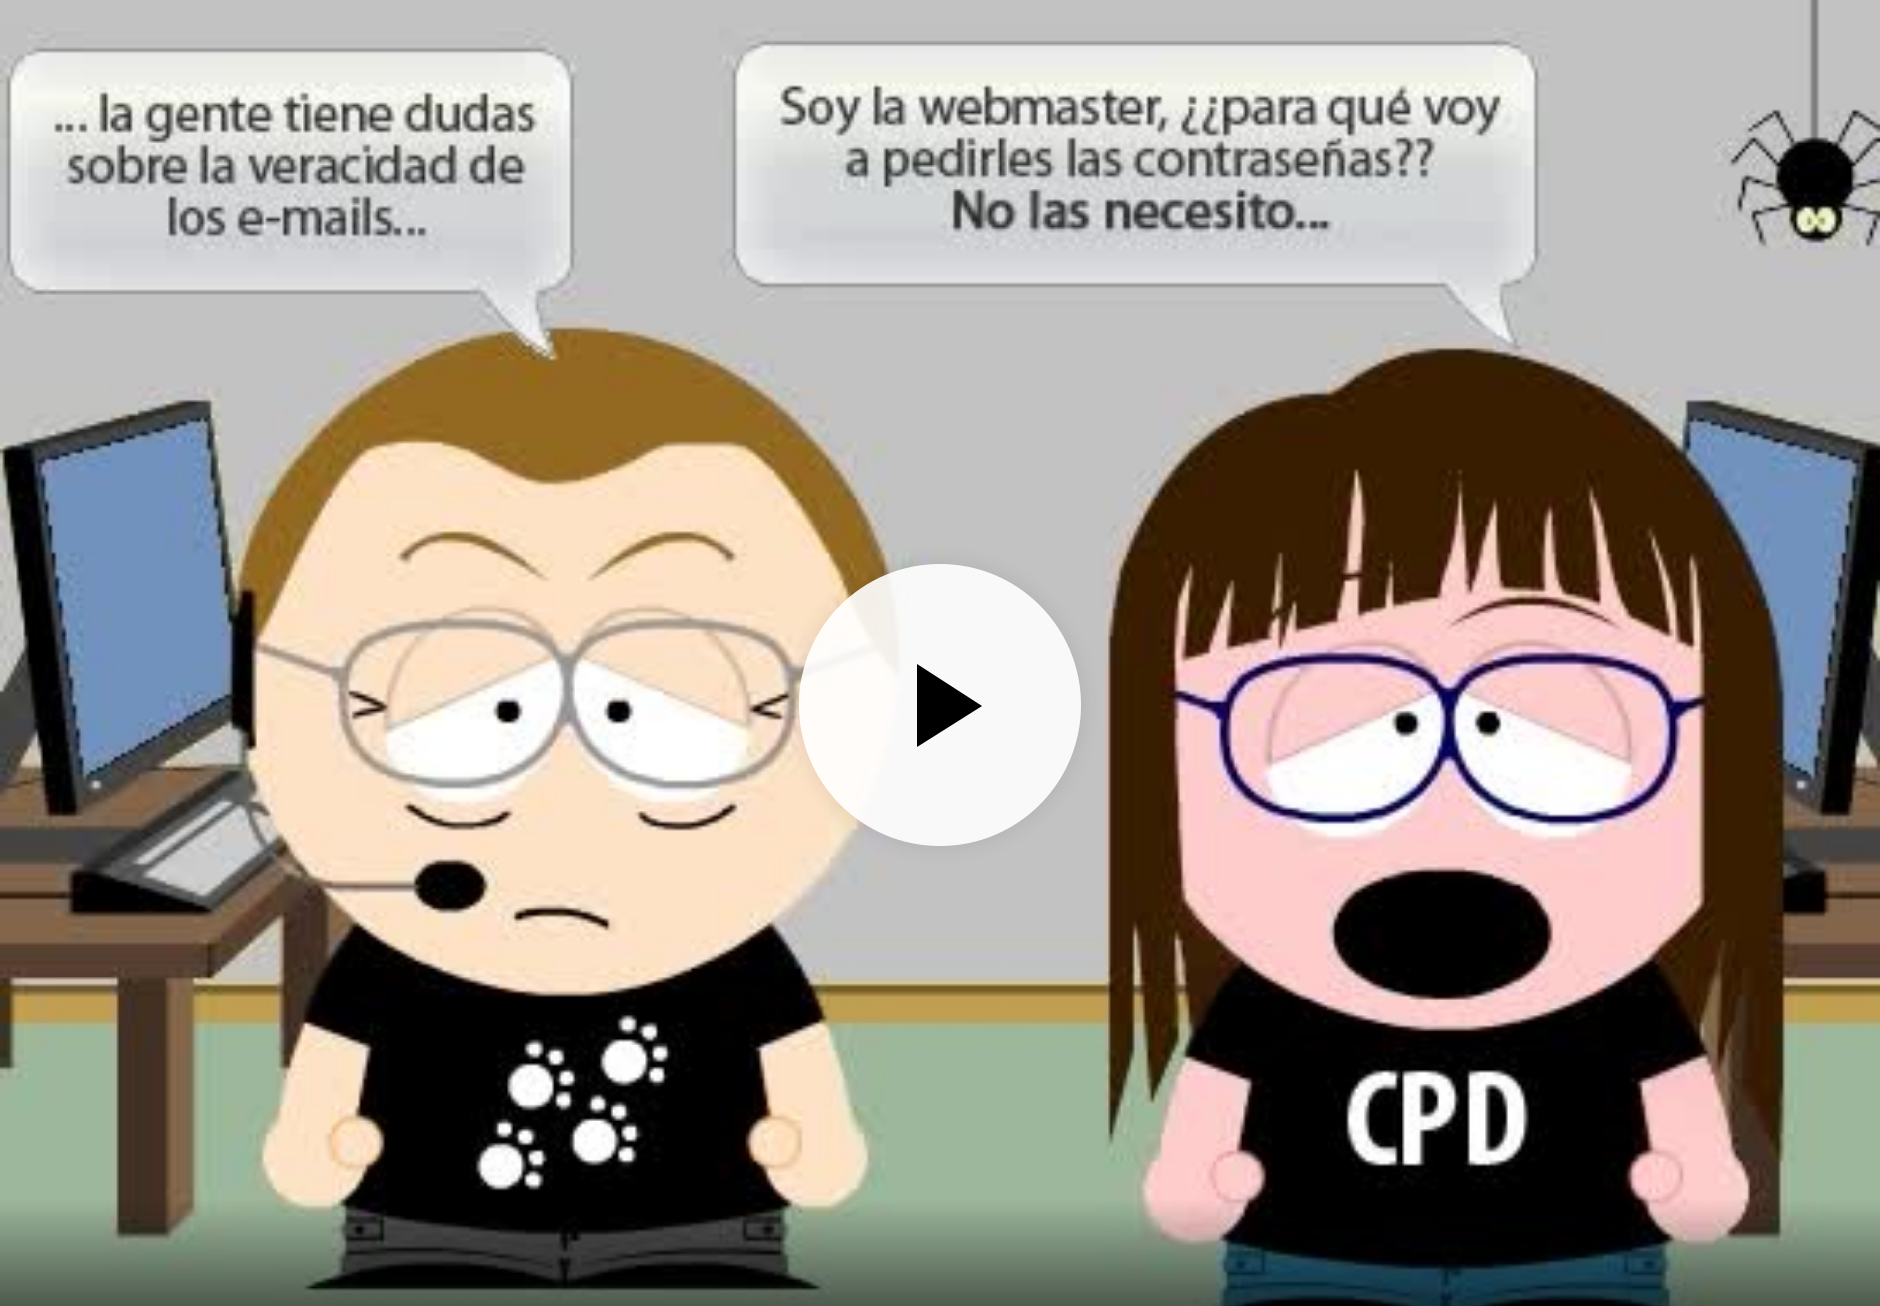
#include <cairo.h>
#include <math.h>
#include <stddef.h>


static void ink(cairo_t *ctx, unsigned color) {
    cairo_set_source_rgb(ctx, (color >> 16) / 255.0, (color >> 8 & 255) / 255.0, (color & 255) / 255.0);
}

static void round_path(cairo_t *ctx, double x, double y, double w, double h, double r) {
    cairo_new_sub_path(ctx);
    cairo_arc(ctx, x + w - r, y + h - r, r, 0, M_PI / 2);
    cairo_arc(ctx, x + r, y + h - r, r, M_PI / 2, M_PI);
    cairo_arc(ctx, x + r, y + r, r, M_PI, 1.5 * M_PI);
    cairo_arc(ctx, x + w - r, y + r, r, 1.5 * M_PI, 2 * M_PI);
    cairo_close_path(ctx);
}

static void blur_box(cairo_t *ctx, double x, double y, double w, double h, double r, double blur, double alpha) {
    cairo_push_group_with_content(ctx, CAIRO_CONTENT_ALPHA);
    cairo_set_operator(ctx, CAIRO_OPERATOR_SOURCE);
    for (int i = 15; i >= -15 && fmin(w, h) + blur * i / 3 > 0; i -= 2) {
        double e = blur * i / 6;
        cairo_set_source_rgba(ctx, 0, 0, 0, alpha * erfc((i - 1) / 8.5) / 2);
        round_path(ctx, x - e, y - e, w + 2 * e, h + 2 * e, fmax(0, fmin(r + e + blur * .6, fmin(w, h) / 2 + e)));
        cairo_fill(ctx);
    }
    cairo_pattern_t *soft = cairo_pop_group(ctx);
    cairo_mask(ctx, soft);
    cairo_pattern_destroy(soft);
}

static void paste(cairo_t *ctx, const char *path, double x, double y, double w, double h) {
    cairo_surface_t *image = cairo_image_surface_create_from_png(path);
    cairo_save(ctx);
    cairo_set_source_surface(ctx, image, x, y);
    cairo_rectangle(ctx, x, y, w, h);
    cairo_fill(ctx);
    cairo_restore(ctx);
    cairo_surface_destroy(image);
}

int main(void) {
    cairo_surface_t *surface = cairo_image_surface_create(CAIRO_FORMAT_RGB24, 1880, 1306);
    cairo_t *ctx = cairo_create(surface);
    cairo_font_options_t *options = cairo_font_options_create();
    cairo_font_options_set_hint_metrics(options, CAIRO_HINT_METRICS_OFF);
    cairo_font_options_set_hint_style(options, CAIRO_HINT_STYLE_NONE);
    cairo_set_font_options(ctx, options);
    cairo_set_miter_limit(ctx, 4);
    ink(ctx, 0xFFFFFF);
    cairo_paint(ctx);
    paste(ctx, "media/1.png", 0, 0, 1880, 1306);
    cairo_save(ctx);
    cairo_set_fill_rule(ctx, CAIRO_FILL_RULE_EVEN_ODD);
    cairo_new_path(ctx);
    cairo_move_to(ctx, 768, 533);
    cairo_line_to(ctx, 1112, 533);
    cairo_line_to(ctx, 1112, 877);
    cairo_line_to(ctx, 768, 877);
    cairo_close_path(ctx);
    cairo_move_to(ctx, 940, 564);
    cairo_curve_to(ctx, 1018, 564, 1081, 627, 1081, 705);
    cairo_curve_to(ctx, 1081, 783, 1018, 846, 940, 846);
    cairo_curve_to(ctx, 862, 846, 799, 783, 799, 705);
    cairo_curve_to(ctx, 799, 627, 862, 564, 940, 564);
    cairo_close_path(ctx);
    cairo_clip(ctx);
    ink(ctx, 0x000000);
    blur_box(ctx, 799, 564, 282, 282, 141, 10, 0.1);
    cairo_restore(ctx);
    cairo_set_source_rgba(ctx, 1, 1, 1, 0.9);
    cairo_arc(ctx, 940, 705, 141, 0, 2 * M_PI);
    cairo_fill(ctx);
    ink(ctx, 0x000000);
    cairo_new_path(ctx);
    cairo_move_to(ctx, 917, 664);
    cairo_line_to(ctx, 917, 747);
    cairo_line_to(ctx, 982, 706);
    cairo_close_path(ctx);
    cairo_fill(ctx);
    cairo_surface_write_to_png(surface, "image.png");
    cairo_font_options_destroy(options);
    cairo_destroy(ctx);
    cairo_surface_destroy(surface);
    return 0;
}
